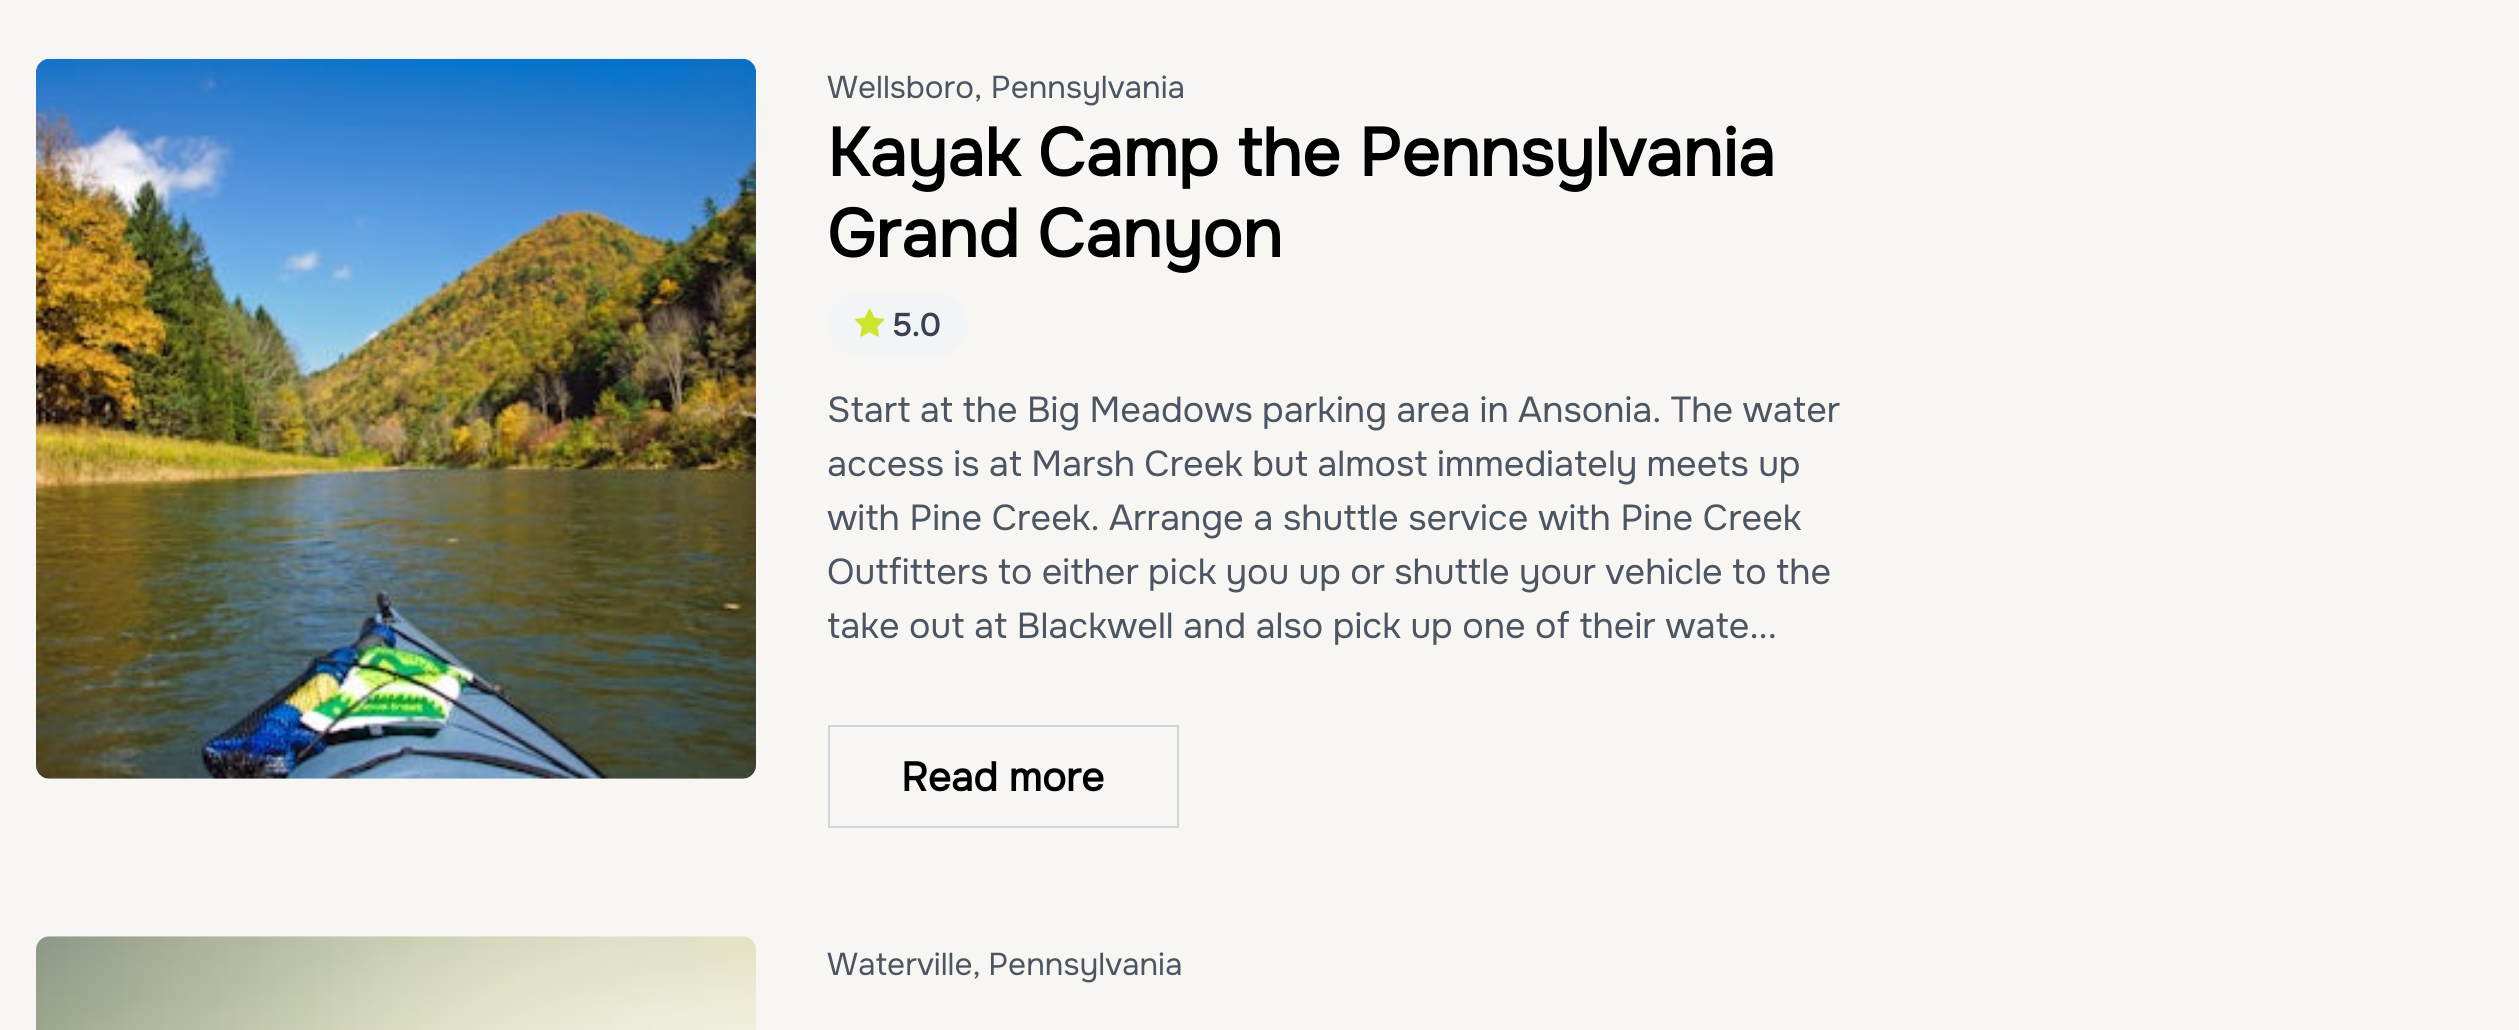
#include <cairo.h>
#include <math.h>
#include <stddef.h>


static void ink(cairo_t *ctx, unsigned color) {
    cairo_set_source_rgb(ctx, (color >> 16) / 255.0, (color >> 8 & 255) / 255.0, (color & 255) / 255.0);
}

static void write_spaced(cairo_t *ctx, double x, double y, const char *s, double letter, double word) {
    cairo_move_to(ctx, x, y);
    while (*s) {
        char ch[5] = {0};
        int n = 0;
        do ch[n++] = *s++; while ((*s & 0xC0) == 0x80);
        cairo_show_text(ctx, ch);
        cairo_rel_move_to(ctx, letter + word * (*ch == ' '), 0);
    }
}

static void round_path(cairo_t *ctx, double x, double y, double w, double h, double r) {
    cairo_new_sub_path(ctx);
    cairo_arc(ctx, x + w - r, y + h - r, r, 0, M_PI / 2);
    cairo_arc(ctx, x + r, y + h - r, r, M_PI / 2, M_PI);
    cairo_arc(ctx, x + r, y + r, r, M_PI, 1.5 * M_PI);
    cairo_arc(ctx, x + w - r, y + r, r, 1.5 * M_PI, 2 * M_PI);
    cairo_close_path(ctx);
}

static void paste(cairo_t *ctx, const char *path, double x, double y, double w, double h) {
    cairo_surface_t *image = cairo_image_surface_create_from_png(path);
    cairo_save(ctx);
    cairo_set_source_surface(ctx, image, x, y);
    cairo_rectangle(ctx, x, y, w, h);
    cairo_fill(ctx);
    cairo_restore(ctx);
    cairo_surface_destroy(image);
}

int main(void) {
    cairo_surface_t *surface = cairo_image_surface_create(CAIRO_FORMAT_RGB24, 2519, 1030);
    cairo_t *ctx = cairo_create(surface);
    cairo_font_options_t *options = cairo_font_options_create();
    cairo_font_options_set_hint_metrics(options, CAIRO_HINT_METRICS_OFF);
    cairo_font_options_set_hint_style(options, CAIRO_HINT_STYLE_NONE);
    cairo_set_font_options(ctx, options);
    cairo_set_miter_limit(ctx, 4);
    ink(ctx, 0xF8F6F2);
    cairo_paint(ctx);
    paste(ctx, "media/1.png", 36, 58, 720, 721);
    cairo_select_font_face(ctx, "Onest", CAIRO_FONT_SLANT_NORMAL, CAIRO_FONT_WEIGHT_NORMAL);
    cairo_set_font_size(ctx, 31.5);
    ink(ctx, 0x4B5563);
    cairo_move_to(ctx, 827, 98);
    cairo_show_text(ctx, "Wellsboro, Pennsylvania");
    cairo_select_font_face(ctx, "Onest", CAIRO_FONT_SLANT_NORMAL, CAIRO_FONT_WEIGHT_BOLD);
    cairo_set_font_size(ctx, 67.5);
    ink(ctx, 0x000000);
    cairo_move_to(ctx, 827, 176);
    cairo_show_text(ctx, "Kayak Camp the Pennsylvania");
    cairo_move_to(ctx, 827, 257);
    cairo_show_text(ctx, "Grand Canyon");
    ink(ctx, 0xF3F4F6);
    round_path(ctx, 828, 293, 140, 63, 31.5);
    cairo_fill(ctx);
    paste(ctx, "media/2.png", 855, 308, 30, 29);
    cairo_set_font_size(ctx, 31.5);
    ink(ctx, 0x374151);
    cairo_move_to(ctx, 892, 336);
    cairo_show_text(ctx, "5.0");
    cairo_select_font_face(ctx, "Onest", CAIRO_FONT_SLANT_NORMAL, CAIRO_FONT_WEIGHT_NORMAL);
    cairo_set_font_size(ctx, 36);
    ink(ctx, 0x4B5563);
    write_spaced(ctx, 827, 422, "Start at the Big Meadows parking area in Ansonia. The water", 0, -0.4);
    write_spaced(ctx, 827, 476, "access is at Marsh Creek but almost immediately meets up", 0, -0.5);
    cairo_move_to(ctx, 827, 530);
    cairo_show_text(ctx, "with Pine Creek.");
    cairo_move_to(ctx, 1109, 530);
    cairo_show_text(ctx, "Arrange a shuttle service with Pine Creek");
    write_spaced(ctx, 827, 584, "Outfitters to either pick you up or shuttle your vehicle to the", 0, -0.5);
    write_spaced(ctx, 827, 638, "take out at Blackwell and also pick up one of their wate...", 0, -0.25);
    cairo_rectangle(ctx, 829, 726, 349, 101);
    ink(ctx, 0xD1D5DB);
    cairo_stroke(ctx);
    cairo_select_font_face(ctx, "Onest", CAIRO_FONT_SLANT_NORMAL, CAIRO_FONT_WEIGHT_BOLD);
    cairo_set_font_size(ctx, 40.5);
    ink(ctx, 0x000000);
    cairo_move_to(ctx, 901, 791);
    cairo_show_text(ctx, "Read more");
    paste(ctx, "media/3.png", 36, 936, 720, 94);
    cairo_select_font_face(ctx, "Onest", CAIRO_FONT_SLANT_NORMAL, CAIRO_FONT_WEIGHT_NORMAL);
    cairo_set_font_size(ctx, 31.5);
    ink(ctx, 0x4B5563);
    write_spaced(ctx, 827, 975, "Waterville, Pennsylvania", 0, -1);
    cairo_surface_write_to_png(surface, "image.png");
    cairo_font_options_destroy(options);
    cairo_destroy(ctx);
    cairo_surface_destroy(surface);
    return 0;
}
